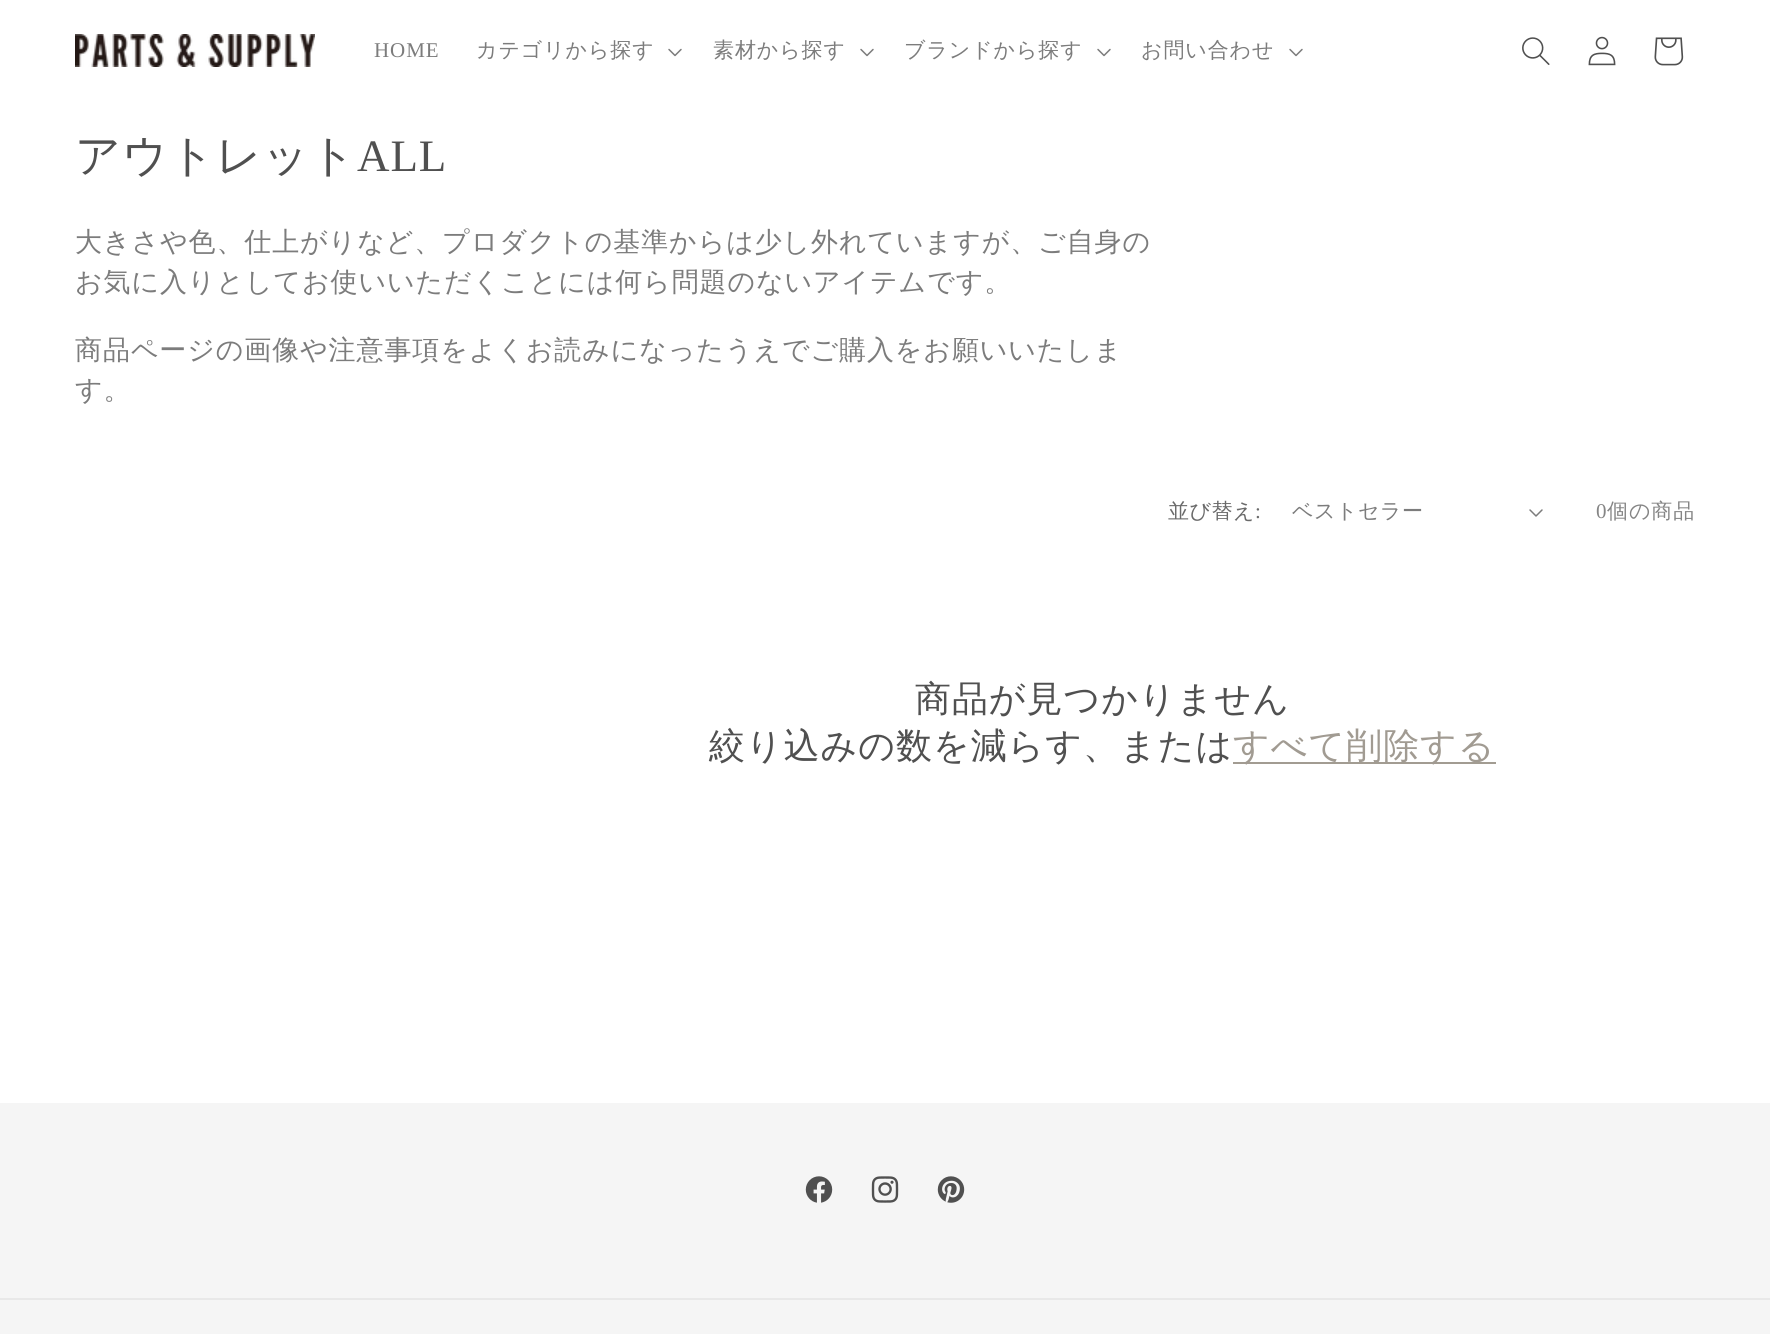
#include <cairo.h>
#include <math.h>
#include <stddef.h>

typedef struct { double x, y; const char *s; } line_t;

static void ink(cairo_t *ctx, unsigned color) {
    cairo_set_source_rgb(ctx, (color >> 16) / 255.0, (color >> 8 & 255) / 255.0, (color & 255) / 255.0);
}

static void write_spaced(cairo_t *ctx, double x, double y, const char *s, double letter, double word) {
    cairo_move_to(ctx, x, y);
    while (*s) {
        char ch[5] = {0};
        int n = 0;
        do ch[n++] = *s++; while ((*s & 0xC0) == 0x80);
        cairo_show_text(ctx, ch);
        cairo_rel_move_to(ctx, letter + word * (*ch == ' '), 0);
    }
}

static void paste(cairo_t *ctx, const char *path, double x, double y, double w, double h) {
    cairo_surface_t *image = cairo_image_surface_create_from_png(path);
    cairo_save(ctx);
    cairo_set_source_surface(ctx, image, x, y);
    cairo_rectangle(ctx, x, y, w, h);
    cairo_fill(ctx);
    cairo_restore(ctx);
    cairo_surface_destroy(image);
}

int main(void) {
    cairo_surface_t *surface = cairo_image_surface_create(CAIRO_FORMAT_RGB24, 1770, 1334);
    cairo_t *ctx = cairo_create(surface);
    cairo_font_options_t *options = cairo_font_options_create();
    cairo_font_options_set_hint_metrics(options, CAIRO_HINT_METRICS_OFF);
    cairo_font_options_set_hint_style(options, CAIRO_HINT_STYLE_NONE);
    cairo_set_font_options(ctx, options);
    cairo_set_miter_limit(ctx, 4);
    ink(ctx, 0xFFFFFF);
    cairo_paint(ctx);
    paste(ctx, "media/1.png", 75, 34, 240, 33);
    cairo_select_font_face(ctx, "Liberation Serif", CAIRO_FONT_SLANT_NORMAL, CAIRO_FONT_WEIGHT_NORMAL);
    cairo_set_font_size(ctx, 21);
    ink(ctx, 0x7C7C7C);
    write_spaced(ctx, 374, 57, "HOME", 0.9, 0);
    cairo_select_font_face(ctx, "WenQuanYi Zen Hei Medium", CAIRO_FONT_SLANT_NORMAL, CAIRO_FONT_WEIGHT_NORMAL);
    write_spaced(ctx, 476, 57, "カテゴリから探す", 0.9, 0);
    paste(ctx, "media/2.png", 668, 48, 14, 9);
    write_spaced(ctx, 713, 57, "素材から探す", 0.9, 0);
    paste(ctx, "media/2.png", 860, 48, 14, 9);
    write_spaced(ctx, 904, 57, "ブランドから探す", 0.9, 0);
    paste(ctx, "media/2.png", 1097, 48, 14, 9);
    write_spaced(ctx, 1141, 57, "お問い合わせ", 0.9, 0);
    paste(ctx, "media/2.png", 1289, 48, 14, 9);
    paste(ctx, "media/3.png", 1522, 37, 28, 28);
    paste(ctx, "media/4.png", 1588, 36, 28, 30);
    paste(ctx, "media/5.png", 1654, 37, 30, 29);
    cairo_set_font_size(ctx, 45);
    ink(ctx, 0x505050);
    write_spaced(ctx, 75, 171, "アウトレット", 0.9, 0);
    cairo_select_font_face(ctx, "Liberation Serif", CAIRO_FONT_SLANT_NORMAL, CAIRO_FONT_WEIGHT_NORMAL);
    write_spaced(ctx, 357, 171, "ALL", 0.9, 0);
    cairo_select_font_face(ctx, "WenQuanYi Zen Hei Medium", CAIRO_FONT_SLANT_NORMAL, CAIRO_FONT_WEIGHT_NORMAL);
    cairo_set_font_size(ctx, 27);
    ink(ctx, 0x7C7C7C);
    {
        static const line_t items[] = {
            {75, 251, "大きさや色、仕上がりなど、プロダクトの基準からは少し外れていますが、ご自身の"},
            {75, 291, "お気に入りとしてお使いいただくことには何ら問題のないアイテムです。"},
            {75, 359, "商品ページの画像や注意事項をよくお読みになったうえでご購入をお願いいたしま"},
            {75, 399, "す。"},
        };
        for (size_t i = 0; i < sizeof items / sizeof *items; i++) {
            write_spaced(ctx, items[i].x, items[i].y, items[i].s, 0.9, 0);
        }
    }
    cairo_set_font_size(ctx, 21);
    ink(ctx, 0x6A6A6A);
    write_spaced(ctx, 1168, 518, "並び替え", 0.5, 0);
    cairo_select_font_face(ctx, "Liberation Serif", CAIRO_FONT_SLANT_NORMAL, CAIRO_FONT_WEIGHT_NORMAL);
    write_spaced(ctx, 1255, 518, ":", 0.5, 0);
    cairo_select_font_face(ctx, "WenQuanYi Zen Hei Medium", CAIRO_FONT_SLANT_NORMAL, CAIRO_FONT_WEIGHT_NORMAL);
    ink(ctx, 0x7C7C7C);
    write_spaced(ctx, 1292, 518, "ベストセラー", 0.5, 0);
    paste(ctx, "media/6.png", 1529, 509, 14, 8);
    cairo_select_font_face(ctx, "Liberation Serif", CAIRO_FONT_SLANT_NORMAL, CAIRO_FONT_WEIGHT_NORMAL);
    ink(ctx, 0x858585);
    write_spaced(ctx, 1596, 518, "0", 0.9, 0);
    cairo_select_font_face(ctx, "WenQuanYi Zen Hei Medium", CAIRO_FONT_SLANT_NORMAL, CAIRO_FONT_WEIGHT_NORMAL);
    write_spaced(ctx, 1607, 518, "個の商品", 0.9, 0);
    cairo_set_font_size(ctx, 36);
    ink(ctx, 0x505050);
    write_spaced(ctx, 915, 711, "商品が見つかりません", 0.9, 0);
    write_spaced(ctx, 709, 758, "絞り込みの数を減らす、または", 0.9, 0);
    ink(ctx, 0xA29C92);
    cairo_rectangle(ctx, 1233, 762, 263, 2);
    cairo_fill(ctx);
    ink(ctx, 0xA19B92);
    write_spaced(ctx, 1233, 758, "すべて削除する", 0.9, 0);
    ink(ctx, 0xF5F5F5);
    cairo_rectangle(ctx, 0, 1103, 1770, 231);
    cairo_fill(ctx);
    paste(ctx, "media/7.png", 805, 1176, 28, 27);
    paste(ctx, "media/8.png", 871, 1176, 28, 27);
    paste(ctx, "media/9.png", 937, 1176, 28, 27);
    ink(ctx, 0xE8E8E8);
    cairo_rectangle(ctx, 0, 1298, 1770, 2);
    cairo_fill(ctx);
    cairo_surface_write_to_png(surface, "image.png");
    cairo_font_options_destroy(options);
    cairo_destroy(ctx);
    cairo_surface_destroy(surface);
    return 0;
}
